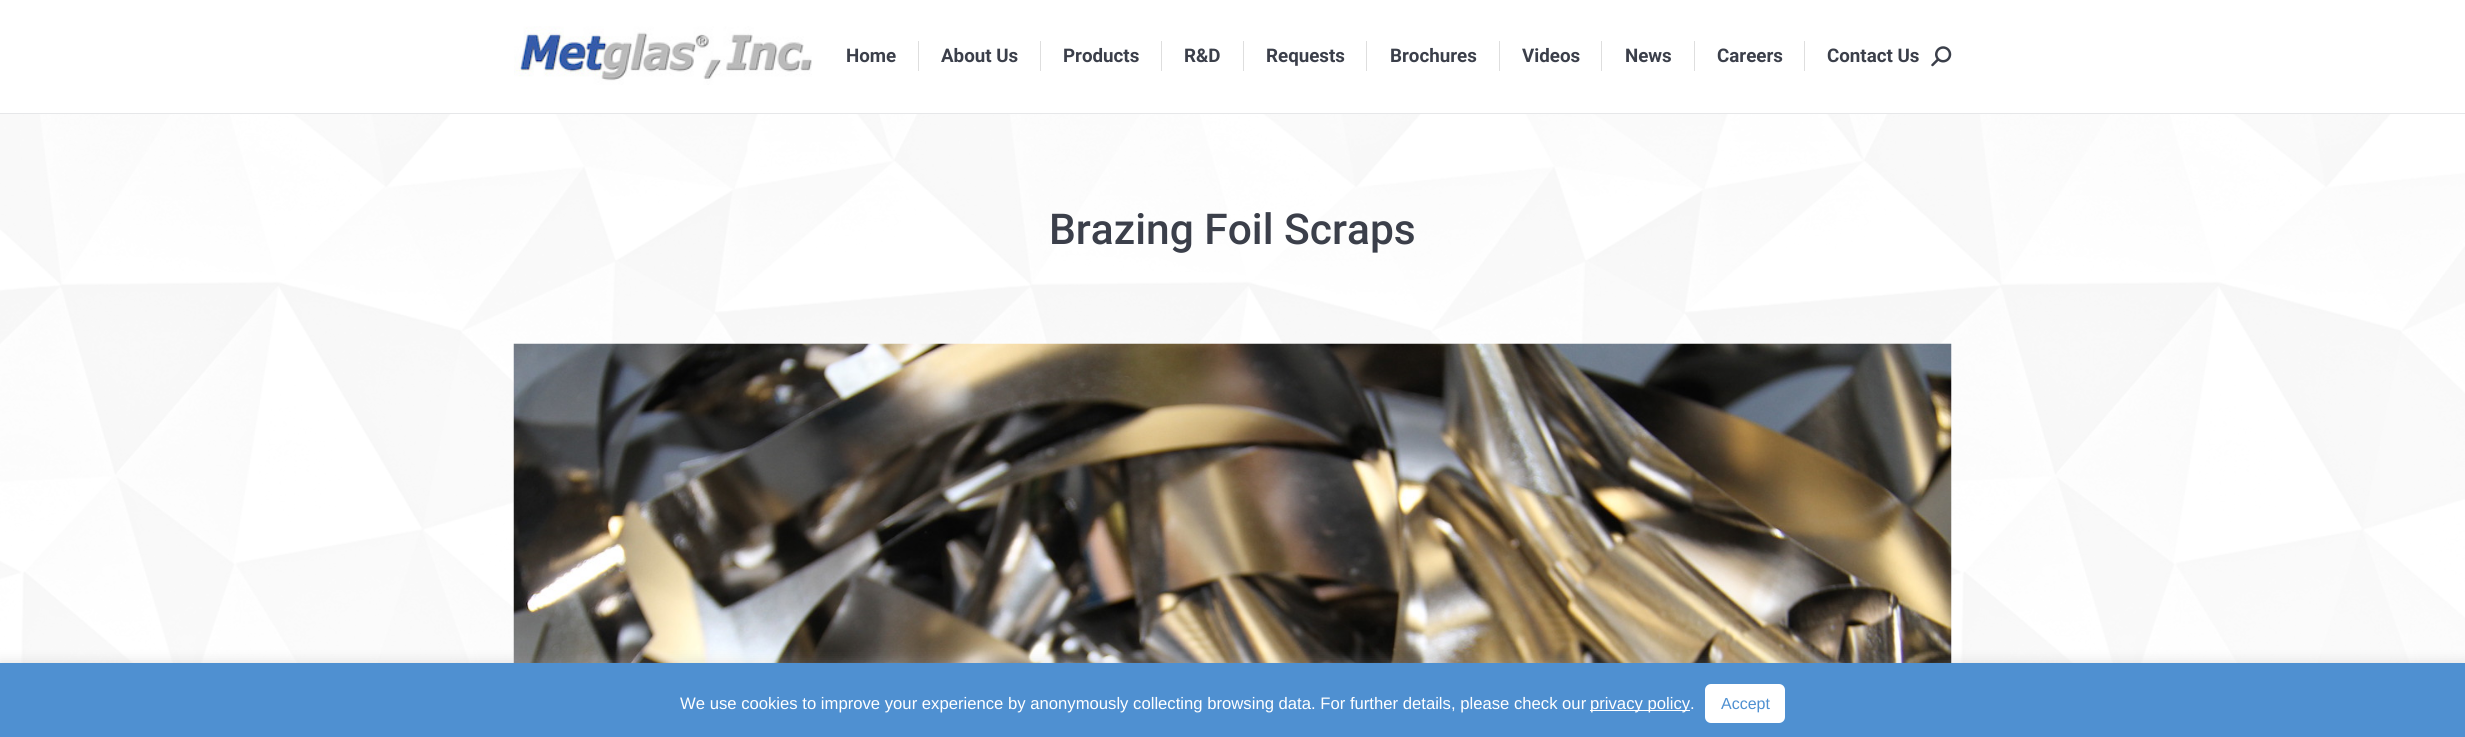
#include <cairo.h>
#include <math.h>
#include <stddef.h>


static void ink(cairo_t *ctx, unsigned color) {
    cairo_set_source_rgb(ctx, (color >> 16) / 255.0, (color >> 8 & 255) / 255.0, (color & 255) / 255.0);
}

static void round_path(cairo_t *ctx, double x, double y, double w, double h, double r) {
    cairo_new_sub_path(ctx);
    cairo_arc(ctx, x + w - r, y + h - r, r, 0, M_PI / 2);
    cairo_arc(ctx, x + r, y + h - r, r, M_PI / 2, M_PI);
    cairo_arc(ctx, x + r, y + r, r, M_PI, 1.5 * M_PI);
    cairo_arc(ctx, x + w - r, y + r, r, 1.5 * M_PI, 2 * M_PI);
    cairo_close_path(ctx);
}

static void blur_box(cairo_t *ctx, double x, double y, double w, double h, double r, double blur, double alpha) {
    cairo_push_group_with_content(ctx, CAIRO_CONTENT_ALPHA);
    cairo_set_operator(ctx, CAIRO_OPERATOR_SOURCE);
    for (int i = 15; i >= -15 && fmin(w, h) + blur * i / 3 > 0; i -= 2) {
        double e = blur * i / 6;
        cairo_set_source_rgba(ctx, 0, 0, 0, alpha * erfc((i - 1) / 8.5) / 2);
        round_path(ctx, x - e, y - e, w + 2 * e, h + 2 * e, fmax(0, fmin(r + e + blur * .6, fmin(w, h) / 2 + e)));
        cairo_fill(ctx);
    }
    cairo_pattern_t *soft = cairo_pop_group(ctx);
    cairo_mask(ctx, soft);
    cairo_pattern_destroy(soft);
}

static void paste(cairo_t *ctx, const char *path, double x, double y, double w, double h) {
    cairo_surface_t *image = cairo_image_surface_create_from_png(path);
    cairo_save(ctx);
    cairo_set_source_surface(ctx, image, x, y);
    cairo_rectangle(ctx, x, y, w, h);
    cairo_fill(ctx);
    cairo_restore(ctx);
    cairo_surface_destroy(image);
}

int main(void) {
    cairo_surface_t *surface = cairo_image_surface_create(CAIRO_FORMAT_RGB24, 2465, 737);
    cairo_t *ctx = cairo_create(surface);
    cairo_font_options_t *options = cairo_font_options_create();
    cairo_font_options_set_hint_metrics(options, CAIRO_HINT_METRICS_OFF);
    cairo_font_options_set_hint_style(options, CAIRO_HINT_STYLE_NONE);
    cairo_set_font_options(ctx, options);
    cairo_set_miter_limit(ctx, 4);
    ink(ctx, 0xFFFFFF);
    cairo_paint(ctx);
    ink(ctx, 0xE6E7E9);
    cairo_rectangle(ctx, 0, 113, 2465, 1);
    cairo_fill(ctx);
    paste(ctx, "media/1.png", 514, 26, 298, 59);
    cairo_select_font_face(ctx, "Roboto", CAIRO_FONT_SLANT_NORMAL, CAIRO_FONT_WEIGHT_BOLD);
    cairo_set_font_size(ctx, 18.75);
    ink(ctx, 0x3B3F4A);
    cairo_move_to(ctx, 846, 62);
    cairo_show_text(ctx, "Home");
    ink(ctx, 0xDEDEDE);
    cairo_rectangle(ctx, 918, 41, 1, 30);
    cairo_fill(ctx);
    ink(ctx, 0x3B3F4A);
    cairo_move_to(ctx, 941, 62);
    cairo_show_text(ctx, "About Us");
    ink(ctx, 0xDEDEDE);
    cairo_rectangle(ctx, 1040, 41, 1, 30);
    cairo_fill(ctx);
    ink(ctx, 0x3B3F4A);
    cairo_move_to(ctx, 1063, 62);
    cairo_show_text(ctx, "Products");
    ink(ctx, 0xDEDEDE);
    cairo_rectangle(ctx, 1161, 41, 1, 30);
    cairo_fill(ctx);
    ink(ctx, 0x3B3F4A);
    cairo_move_to(ctx, 1184, 62);
    cairo_show_text(ctx, "R&D");
    ink(ctx, 0xDEDEDE);
    cairo_rectangle(ctx, 1243, 41, 1, 30);
    cairo_fill(ctx);
    ink(ctx, 0x3B3F4A);
    cairo_move_to(ctx, 1266, 62);
    cairo_show_text(ctx, "Requests");
    ink(ctx, 0xDEDEDE);
    cairo_rectangle(ctx, 1366, 41, 1, 30);
    cairo_fill(ctx);
    ink(ctx, 0x3B3F4A);
    cairo_move_to(ctx, 1390, 62);
    cairo_show_text(ctx, "Brochures");
    ink(ctx, 0xDEDEDE);
    cairo_rectangle(ctx, 1499, 41, 1, 30);
    cairo_fill(ctx);
    ink(ctx, 0x3B3F4A);
    cairo_move_to(ctx, 1522, 62);
    cairo_show_text(ctx, "Videos");
    ink(ctx, 0xDEDEDE);
    cairo_rectangle(ctx, 1601, 41, 1, 30);
    cairo_fill(ctx);
    ink(ctx, 0x3B3F4A);
    cairo_move_to(ctx, 1625, 62);
    cairo_show_text(ctx, "News");
    ink(ctx, 0xDEDEDE);
    cairo_rectangle(ctx, 1694, 41, 1, 30);
    cairo_fill(ctx);
    ink(ctx, 0x3B3F4A);
    cairo_move_to(ctx, 1717, 62);
    cairo_show_text(ctx, "Careers");
    ink(ctx, 0xDEDEDE);
    cairo_rectangle(ctx, 1804, 41, 1, 30);
    cairo_fill(ctx);
    ink(ctx, 0x3B3F4A);
    cairo_move_to(ctx, 1827, 62);
    cairo_show_text(ctx, "Contact Us");
    paste(ctx, "media/2.png", 1931, 46, 21, 21);
    paste(ctx, "media/3.png", 0, 114, 2465, 549);
    cairo_select_font_face(ctx, "Roboto Medium", CAIRO_FONT_SLANT_NORMAL, CAIRO_FONT_WEIGHT_NORMAL);
    cairo_set_font_size(ctx, 42.5);
    cairo_move_to(ctx, 1049, 244);
    cairo_show_text(ctx, "Brazing Foil Scraps");
    paste(ctx, "media/4.png", 513, 343, 1439, 320);
    ink(ctx, 0xACABAB);
    blur_box(ctx, 0, 661, 2465, 75, 0, 6, 0.3);
    ink(ctx, 0x4F90D1);
    cairo_rectangle(ctx, 0, 663, 2465, 74);
    cairo_fill(ctx);
    cairo_select_font_face(ctx, "Liberation Sans", CAIRO_FONT_SLANT_NORMAL, CAIRO_FONT_WEIGHT_NORMAL);
    cairo_set_font_size(ctx, 16.67);
    ink(ctx, 0xFFFFFF);
    cairo_move_to(ctx, 680, 709);
    cairo_show_text(ctx, "We use cookies to improve your experience by anonymously collecting browsing data. For further details, please check our");
    cairo_rectangle(ctx, 1590, 710, 100, 1);
    cairo_fill(ctx);
    cairo_move_to(ctx, 1590, 709);
    cairo_show_text(ctx, "privacy policy.");
    round_path(ctx, 1705, 684, 80, 39, 6);
    cairo_fill(ctx);
    cairo_set_font_size(ctx, 16);
    ink(ctx, 0x4F90D1);
    cairo_move_to(ctx, 1721, 709);
    cairo_show_text(ctx, "Accept");
    cairo_surface_write_to_png(surface, "image.png");
    cairo_font_options_destroy(options);
    cairo_destroy(ctx);
    cairo_surface_destroy(surface);
    return 0;
}
